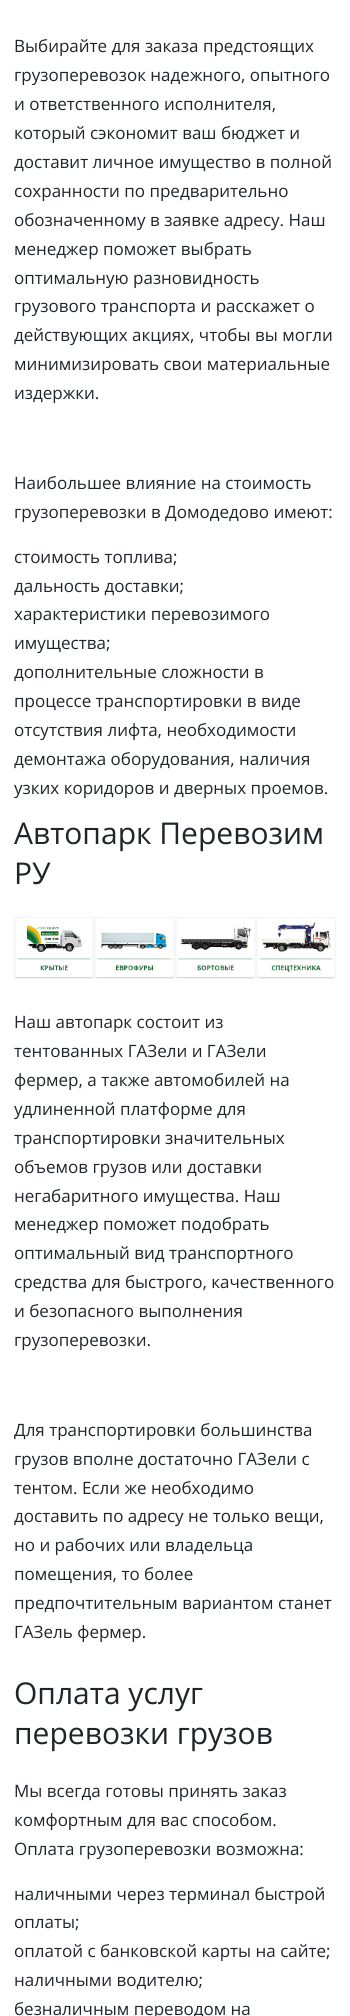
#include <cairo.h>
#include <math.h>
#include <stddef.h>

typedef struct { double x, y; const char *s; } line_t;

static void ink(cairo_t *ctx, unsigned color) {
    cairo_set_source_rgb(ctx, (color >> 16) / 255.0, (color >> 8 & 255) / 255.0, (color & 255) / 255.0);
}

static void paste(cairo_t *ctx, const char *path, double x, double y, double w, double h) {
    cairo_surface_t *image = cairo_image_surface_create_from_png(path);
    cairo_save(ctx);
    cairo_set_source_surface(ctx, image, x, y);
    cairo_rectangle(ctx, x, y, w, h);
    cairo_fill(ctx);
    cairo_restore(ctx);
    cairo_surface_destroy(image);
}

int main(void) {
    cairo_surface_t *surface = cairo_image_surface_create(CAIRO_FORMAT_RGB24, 350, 2016);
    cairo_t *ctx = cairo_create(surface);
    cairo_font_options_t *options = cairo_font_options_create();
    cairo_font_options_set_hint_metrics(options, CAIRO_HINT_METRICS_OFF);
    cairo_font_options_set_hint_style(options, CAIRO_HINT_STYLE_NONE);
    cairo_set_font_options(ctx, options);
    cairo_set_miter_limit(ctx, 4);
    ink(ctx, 0xFFFFFF);
    cairo_paint(ctx);
    cairo_select_font_face(ctx, "Open Sans", CAIRO_FONT_SLANT_NORMAL, CAIRO_FONT_WEIGHT_NORMAL);
    cairo_set_font_size(ctx, 17);
    ink(ctx, 0x212529);
    {
        static const line_t items[] = {
            {14, 52, "Выбирайте для заказа предстоящих"},
            {14, 81, "грузоперевозок надежного, опытного"},
            {14, 110, "и ответственного исполнителя,"},
            {14, 139, "который сэкономит ваш бюджет и"},
            {14, 168, "доставит личное имущество в полной"},
            {14, 197, "сохранности по предварительно"},
            {14, 226, "обозначенному в заявке адресу. Наш"},
            {14, 255, "менеджер поможет выбрать"},
            {14, 284, "оптимальную разновидность"},
            {14, 312, "грузового транспорта и расскажет о"},
            {14, 341, "действующих акциях, чтобы вы могли"},
            {14, 370, "минимизировать свои материальные"},
            {14, 399, "издержки."},
            {14, 489, "Наибольшее влияние на стоимость"},
            {14, 518, "грузоперевозки в Домодедово имеют:"},
            {14, 563, "стоимость топлива;"},
            {14, 592, "дальность доставки;"},
            {14, 620, "характеристики перевозимого"},
            {14, 649, "имущества;"},
            {14, 678, "дополнительные сложности в"},
            {14, 707, "процессе транспортировки в виде"},
            {14, 736, "отсутствия лифта, необходимости"},
            {14, 765, "демонтажа оборудования, наличия"},
            {14, 794, "узких коридоров и дверных проемов."},
        };
        for (size_t i = 0; i < sizeof items / sizeof *items; i++) {
            cairo_move_to(ctx, items[i].x, items[i].y);
            cairo_show_text(ctx, items[i].s);
        }
    }
    cairo_set_font_size(ctx, 30);
    cairo_move_to(ctx, 14, 844);
    cairo_show_text(ctx, "Автопарк Перевозим");
    cairo_move_to(ctx, 14, 884);
    cairo_show_text(ctx, "РУ");
    paste(ctx, "media/1.png", 14, 917, 80, 62);
    paste(ctx, "media/2.png", 94, 917, 81, 62);
    paste(ctx, "media/3.png", 175, 917, 81, 62);
    paste(ctx, "media/4.png", 256, 917, 80, 62);
    cairo_set_font_size(ctx, 17);
    {
        static const line_t items[] = {
            {14, 1028, "Наш автопарк состоит из"},
            {14, 1057, "тентованных ГАЗели и ГАЗели"},
            {14, 1086, "фермер, а также автомобилей на"},
            {14, 1115, "удлиненной платформе для"},
            {14, 1144, "транспортировки значительных"},
            {14, 1173, "объемов грузов или доставки"},
            {14, 1202, "негабаритного имущества. Наш"},
            {14, 1230, "менеджер поможет подобрать"},
            {14, 1259, "оптимальный вид транспортного"},
            {14, 1288, "средства для быстрого, качественного"},
            {14, 1317, "и безопасного выполнения"},
            {14, 1346, "грузоперевозки."},
            {14, 1436, "Для транспортировки большинства"},
            {14, 1465, "грузов вполне достаточно ГАЗели с"},
            {14, 1494, "тентом. Если же необходимо"},
            {14, 1522, "доставить по адресу не только вещи,"},
            {14, 1551, "но и рабочих или владельца"},
            {14, 1580, "помещения, то более"},
            {14, 1609, "предпочтительным вариантом станет"},
            {14, 1638, "ГАЗель фермер."},
        };
        for (size_t i = 0; i < sizeof items / sizeof *items; i++) {
            cairo_move_to(ctx, items[i].x, items[i].y);
            cairo_show_text(ctx, items[i].s);
        }
    }
    cairo_set_font_size(ctx, 30);
    cairo_move_to(ctx, 14, 1704);
    cairo_show_text(ctx, "Оплата услуг");
    cairo_move_to(ctx, 14, 1744);
    cairo_show_text(ctx, "перевозки грузов");
    cairo_set_font_size(ctx, 17);
    {
        static const line_t items[] = {
            {14, 1797, "Мы всегда готовы принять заказ"},
            {14, 1826, "комфортным для вас способом."},
            {14, 1855, "Оплата грузоперевозки возможна:"},
            {14, 1900, "наличными через терминал быстрой"},
            {14, 1928, "оплаты;"},
            {14, 1957, "оплатой с банковской карты на сайте;"},
            {14, 1986, "наличными водителю;"},
            {14, 2015, "безналичным переводом на"},
        };
        for (size_t i = 0; i < sizeof items / sizeof *items; i++) {
            cairo_move_to(ctx, items[i].x, items[i].y);
            cairo_show_text(ctx, items[i].s);
        }
    }
    cairo_surface_write_to_png(surface, "image.png");
    cairo_font_options_destroy(options);
    cairo_destroy(ctx);
    cairo_surface_destroy(surface);
    return 0;
}
